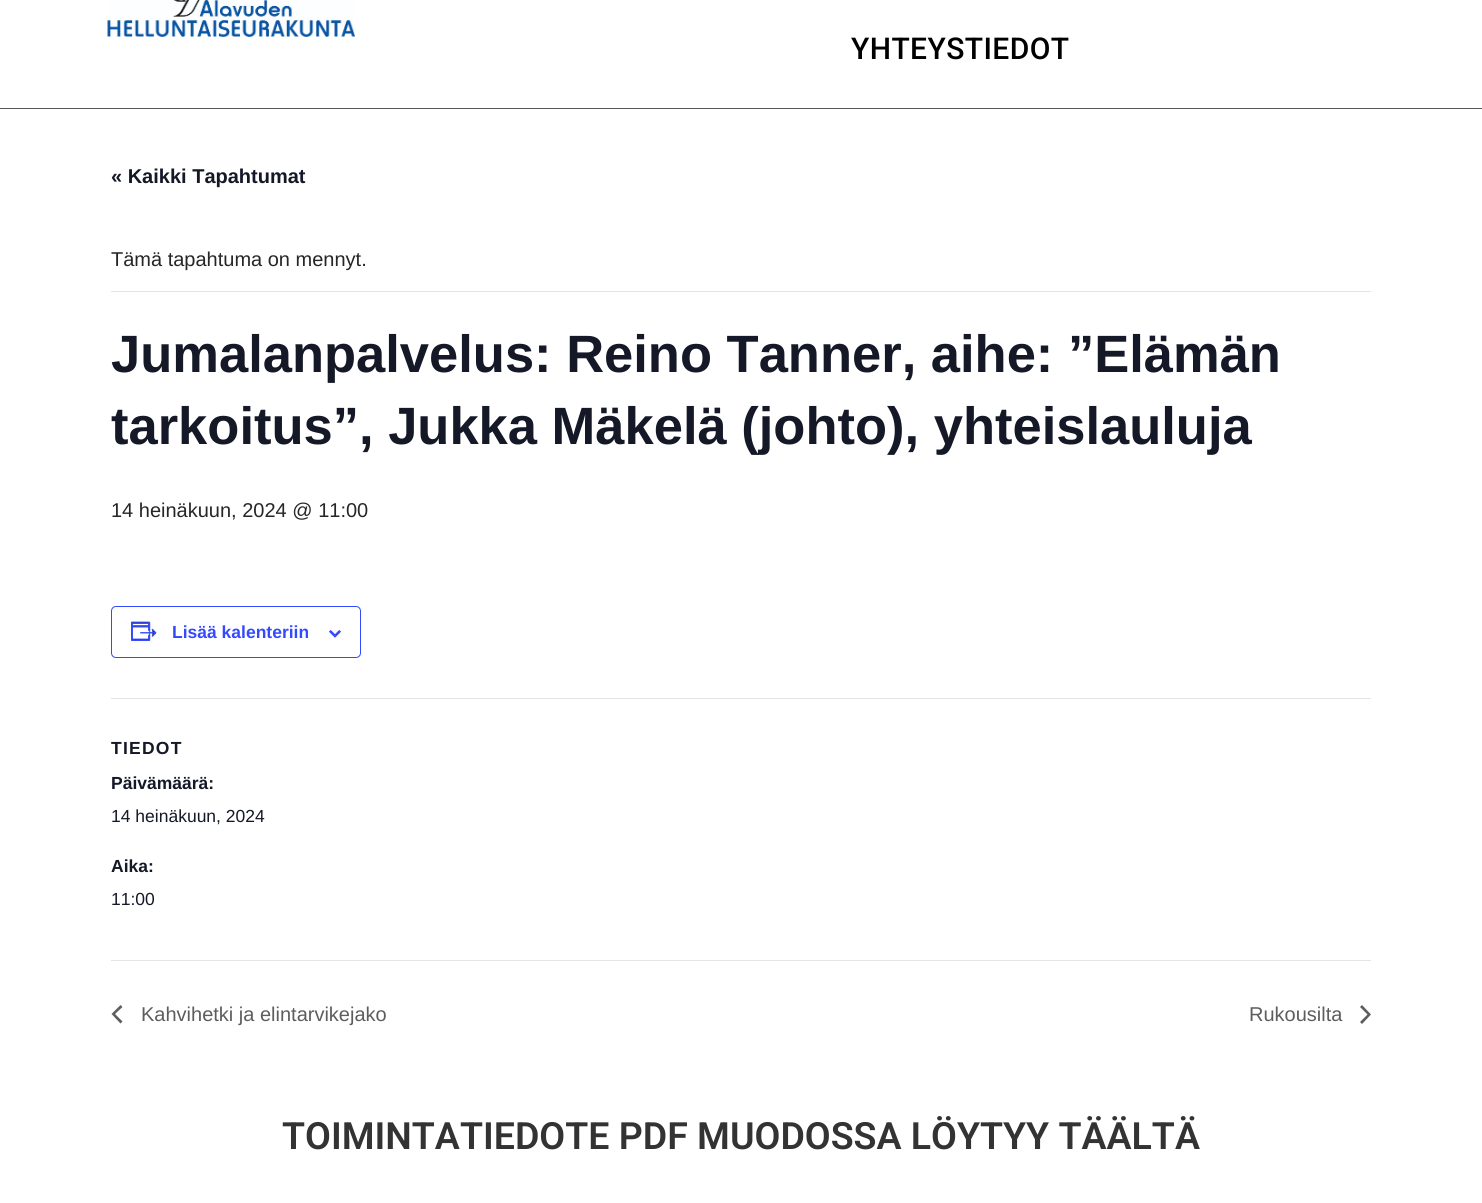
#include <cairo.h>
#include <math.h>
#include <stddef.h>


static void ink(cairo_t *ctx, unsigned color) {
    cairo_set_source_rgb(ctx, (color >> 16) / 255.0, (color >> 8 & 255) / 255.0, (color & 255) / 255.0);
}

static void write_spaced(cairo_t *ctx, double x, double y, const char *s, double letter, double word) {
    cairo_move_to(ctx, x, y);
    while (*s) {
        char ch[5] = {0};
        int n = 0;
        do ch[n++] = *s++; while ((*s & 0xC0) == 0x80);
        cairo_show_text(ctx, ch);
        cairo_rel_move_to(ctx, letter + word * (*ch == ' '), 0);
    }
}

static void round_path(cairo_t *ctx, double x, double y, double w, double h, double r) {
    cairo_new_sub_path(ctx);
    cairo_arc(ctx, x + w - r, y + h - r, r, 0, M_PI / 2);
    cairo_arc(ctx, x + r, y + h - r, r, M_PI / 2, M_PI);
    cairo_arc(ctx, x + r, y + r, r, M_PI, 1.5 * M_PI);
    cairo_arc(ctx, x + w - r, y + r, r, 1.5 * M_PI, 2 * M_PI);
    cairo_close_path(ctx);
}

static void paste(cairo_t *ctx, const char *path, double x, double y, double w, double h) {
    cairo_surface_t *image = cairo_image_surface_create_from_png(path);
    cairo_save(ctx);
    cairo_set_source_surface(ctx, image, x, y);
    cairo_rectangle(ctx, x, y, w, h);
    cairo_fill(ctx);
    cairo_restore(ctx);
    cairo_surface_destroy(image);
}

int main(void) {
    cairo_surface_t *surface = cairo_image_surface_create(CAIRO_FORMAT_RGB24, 1482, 1203);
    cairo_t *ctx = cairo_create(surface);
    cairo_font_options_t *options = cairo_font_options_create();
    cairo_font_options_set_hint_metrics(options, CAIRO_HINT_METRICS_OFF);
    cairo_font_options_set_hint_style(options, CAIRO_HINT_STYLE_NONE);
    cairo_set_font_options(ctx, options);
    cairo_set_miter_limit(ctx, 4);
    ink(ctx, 0xFFFFFF);
    cairo_paint(ctx);
    paste(ctx, "media/1.png", 107, 0, 248, 37);
    cairo_select_font_face(ctx, "Roboto Medium", CAIRO_FONT_SLANT_NORMAL, CAIRO_FONT_WEIGHT_NORMAL);
    cairo_set_font_size(ctx, 30);
    ink(ctx, 0x000000);
    write_spaced(ctx, 851, 59, "YHTEYSTIEDOT", 0.4, 0);
    ink(ctx, 0x585858);
    cairo_rectangle(ctx, 0, 108, 1482, 1);
    cairo_fill(ctx);
    cairo_select_font_face(ctx, "Liberation Sans", CAIRO_FONT_SLANT_NORMAL, CAIRO_FONT_WEIGHT_BOLD);
    cairo_set_font_size(ctx, 20);
    ink(ctx, 0x141827);
    cairo_move_to(ctx, 111, 183);
    cairo_show_text(ctx, "« Kaikki Tapahtumat");
    ink(ctx, 0xE4E4E4);
    cairo_rectangle(ctx, 111, 291, 1260, 1);
    cairo_fill(ctx);
    cairo_select_font_face(ctx, "Liberation Sans", CAIRO_FONT_SLANT_NORMAL, CAIRO_FONT_WEIGHT_NORMAL);
    ink(ctx, 0x272626);
    cairo_move_to(ctx, 111, 266);
    cairo_show_text(ctx, "Tämä tapahtuma on mennyt.");
    cairo_select_font_face(ctx, "Liberation Sans", CAIRO_FONT_SLANT_NORMAL, CAIRO_FONT_WEIGHT_BOLD);
    cairo_set_font_size(ctx, 52.5);
    ink(ctx, 0x141827);
    cairo_move_to(ctx, 111, 372);
    cairo_show_text(ctx, "Jumalanpalvelus: Reino Tanner, aihe: ”Elämän");
    cairo_move_to(ctx, 111, 444);
    cairo_show_text(ctx, "tarkoitus”, Jukka Mäkelä (johto), yhteislauluja");
    cairo_select_font_face(ctx, "Liberation Sans", CAIRO_FONT_SLANT_NORMAL, CAIRO_FONT_WEIGHT_NORMAL);
    cairo_set_font_size(ctx, 20);
    ink(ctx, 0x272626);
    cairo_move_to(ctx, 111, 517);
    cairo_show_text(ctx, "14 heinäkuun, 2024 @ 11:00");
    round_path(ctx, 111.5, 606.5, 249, 51, 4.5);
    ink(ctx, 0x334AFF);
    cairo_set_line_width(ctx, 1);
    cairo_stroke(ctx);
    paste(ctx, "media/2.png", 131, 621, 26, 20);
    cairo_select_font_face(ctx, "Liberation Sans", CAIRO_FONT_SLANT_NORMAL, CAIRO_FONT_WEIGHT_BOLD);
    cairo_set_font_size(ctx, 17.5);
    cairo_move_to(ctx, 172, 638);
    cairo_show_text(ctx, "Lisää kalenteriin");
    paste(ctx, "media/3.png", 329, 630, 12, 8);
    ink(ctx, 0xE4E4E4);
    cairo_rectangle(ctx, 111, 698, 1260, 1);
    cairo_fill(ctx);
    ink(ctx, 0x141827);
    write_spaced(ctx, 111, 754, "TIEDOT", 1.25, 0);
    cairo_move_to(ctx, 111, 789);
    cairo_show_text(ctx, "Päivämäärä:");
    cairo_select_font_face(ctx, "Liberation Sans", CAIRO_FONT_SLANT_NORMAL, CAIRO_FONT_WEIGHT_NORMAL);
    cairo_move_to(ctx, 111, 822);
    cairo_show_text(ctx, "14 heinäkuun, 2024");
    cairo_select_font_face(ctx, "Liberation Sans", CAIRO_FONT_SLANT_NORMAL, CAIRO_FONT_WEIGHT_BOLD);
    cairo_move_to(ctx, 111, 872);
    cairo_show_text(ctx, "Aika:");
    cairo_select_font_face(ctx, "Liberation Sans", CAIRO_FONT_SLANT_NORMAL, CAIRO_FONT_WEIGHT_NORMAL);
    cairo_move_to(ctx, 111, 905);
    cairo_show_text(ctx, "11:00");
    ink(ctx, 0xE4E4E4);
    cairo_rectangle(ctx, 111, 960, 1260, 1);
    cairo_fill(ctx);
    ink(ctx, 0x5D5D5D);
    cairo_new_path(ctx);
    cairo_move_to(ctx, 122.5, 1021.5);
    cairo_line_to(ctx, 120.5, 1023.5);
    cairo_line_to(ctx, 111.5, 1014);
    cairo_line_to(ctx, 120.5, 1005);
    cairo_line_to(ctx, 122.5, 1007);
    cairo_line_to(ctx, 115, 1014);
    cairo_close_path(ctx);
    cairo_fill(ctx);
    cairo_set_font_size(ctx, 20);
    cairo_move_to(ctx, 141, 1021);
    cairo_show_text(ctx, "Kahvihetki ja elintarvikejako");
    cairo_move_to(ctx, 1249, 1021);
    cairo_show_text(ctx, "Rukousilta");
    cairo_new_path(ctx);
    cairo_move_to(ctx, 1360, 1007);
    cairo_line_to(ctx, 1362, 1005);
    cairo_line_to(ctx, 1371, 1014.5);
    cairo_line_to(ctx, 1362, 1024);
    cairo_line_to(ctx, 1360, 1022);
    cairo_line_to(ctx, 1367.5, 1014.5);
    cairo_close_path(ctx);
    cairo_fill(ctx);
    cairo_select_font_face(ctx, "Roboto SemiBold", CAIRO_FONT_SLANT_NORMAL, CAIRO_FONT_WEIGHT_NORMAL);
    cairo_set_font_size(ctx, 37.5);
    ink(ctx, 0x333333);
    cairo_move_to(ctx, 282, 1149);
    cairo_show_text(ctx, "TOIMINTATIEDOTE PDF MUODOSSA LÖYTYY TÄÄLTÄ");
    cairo_surface_write_to_png(surface, "image.png");
    cairo_font_options_destroy(options);
    cairo_destroy(ctx);
    cairo_surface_destroy(surface);
    return 0;
}
